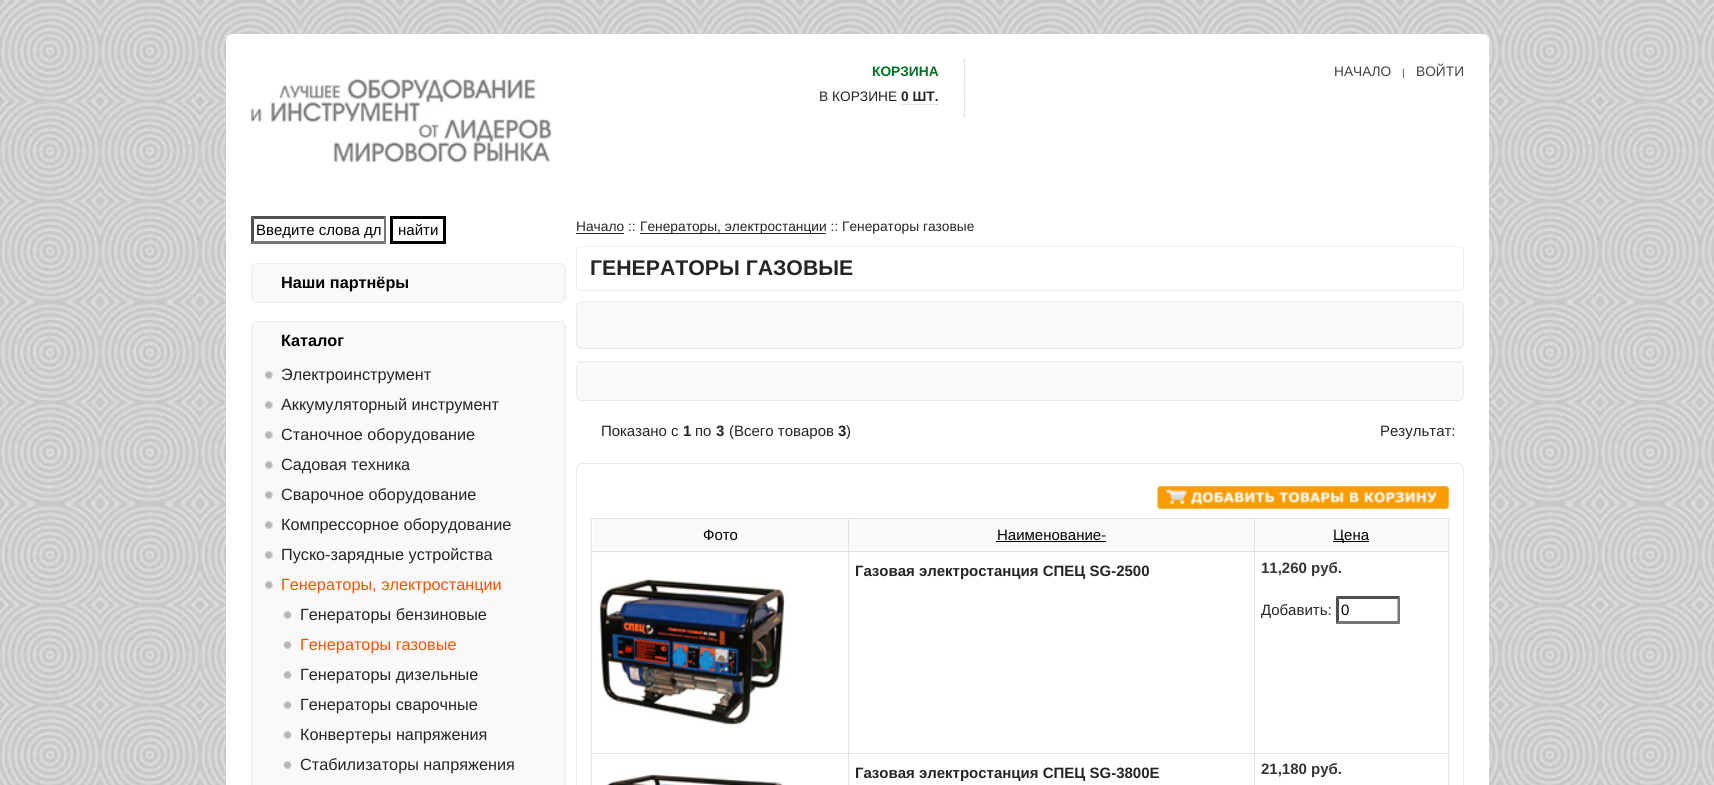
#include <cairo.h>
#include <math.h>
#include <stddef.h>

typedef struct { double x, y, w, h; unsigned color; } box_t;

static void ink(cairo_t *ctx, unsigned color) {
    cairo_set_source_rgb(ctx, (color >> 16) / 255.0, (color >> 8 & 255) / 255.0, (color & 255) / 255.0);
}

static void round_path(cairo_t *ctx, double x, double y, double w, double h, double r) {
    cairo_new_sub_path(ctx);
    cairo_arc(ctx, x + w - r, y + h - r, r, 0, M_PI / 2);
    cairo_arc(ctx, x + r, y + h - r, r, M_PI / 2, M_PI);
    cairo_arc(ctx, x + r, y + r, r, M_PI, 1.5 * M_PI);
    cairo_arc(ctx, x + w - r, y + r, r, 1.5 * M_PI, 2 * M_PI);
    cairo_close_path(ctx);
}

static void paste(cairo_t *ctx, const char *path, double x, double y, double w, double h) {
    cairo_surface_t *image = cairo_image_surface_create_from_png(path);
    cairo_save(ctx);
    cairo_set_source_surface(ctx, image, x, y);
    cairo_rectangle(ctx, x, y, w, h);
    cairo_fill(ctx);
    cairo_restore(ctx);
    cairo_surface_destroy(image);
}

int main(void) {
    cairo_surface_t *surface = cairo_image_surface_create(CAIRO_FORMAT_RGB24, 1714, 785);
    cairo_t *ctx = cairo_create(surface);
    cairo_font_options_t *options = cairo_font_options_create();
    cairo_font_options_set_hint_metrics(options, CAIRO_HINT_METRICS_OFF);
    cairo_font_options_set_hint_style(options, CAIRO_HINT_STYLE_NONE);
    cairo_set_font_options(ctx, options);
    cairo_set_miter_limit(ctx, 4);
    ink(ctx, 0xFFFFFF);
    cairo_paint(ctx);
    paste(ctx, "media/1.png", 0, 0, 1714, 785);
    ink(ctx, 0xFFFFFF);
    round_path(ctx, 226, 34, 1263, 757, 6);
    cairo_fill(ctx);
    paste(ctx, "media/2.png", 251, 78, 301, 85);
    cairo_select_font_face(ctx, "Liberation Sans", CAIRO_FONT_SLANT_NORMAL, CAIRO_FONT_WEIGHT_BOLD);
    cairo_set_font_size(ctx, 13.75);
    ink(ctx, 0x007124);
    cairo_move_to(ctx, 872, 76);
    cairo_show_text(ctx, "КОРЗИНА");
    cairo_select_font_face(ctx, "Liberation Sans", CAIRO_FONT_SLANT_NORMAL, CAIRO_FONT_WEIGHT_NORMAL);
    ink(ctx, 0x252525);
    cairo_move_to(ctx, 819, 101);
    cairo_show_text(ctx, "В КОРЗИНЕ");
    cairo_select_font_face(ctx, "Liberation Sans", CAIRO_FONT_SLANT_NORMAL, CAIRO_FONT_WEIGHT_BOLD);
    cairo_move_to(ctx, 901, 101);
    cairo_show_text(ctx, "0 ШТ.");
    cairo_new_path(ctx);
    cairo_move_to(ctx, 901, 104.5);
    cairo_line_to(ctx, 939, 104.5);
    ink(ctx, 0xC8C8C8);
    cairo_set_line_width(ctx, 1.2);
    cairo_set_dash(ctx, (double[]){1.25, 1.25}, 2, 0);
    cairo_stroke(ctx);
    paste(ctx, "media/3.png", 963, 58, 2, 60);
    cairo_select_font_face(ctx, "Liberation Sans", CAIRO_FONT_SLANT_NORMAL, CAIRO_FONT_WEIGHT_NORMAL);
    ink(ctx, 0x424242);
    cairo_move_to(ctx, 1334, 76);
    cairo_show_text(ctx, "НАЧАЛО");
    cairo_set_font_size(ctx, 10);
    cairo_move_to(ctx, 1402, 76);
    cairo_show_text(ctx, "|");
    cairo_set_font_size(ctx, 13.75);
    cairo_move_to(ctx, 1416, 76);
    cairo_show_text(ctx, "ВОЙТИ");
    ink(ctx, 0x4F4F4F);
    cairo_new_path(ctx);
    cairo_move_to(ctx, 251, 216);
    cairo_line_to(ctx, 386, 216);
    cairo_line_to(ctx, 384, 219);
    cairo_line_to(ctx, 254, 219);
    cairo_close_path(ctx);
    cairo_fill(ctx);
    ink(ctx, 0x767676);
    cairo_new_path(ctx);
    cairo_move_to(ctx, 386, 216);
    cairo_line_to(ctx, 386, 244);
    cairo_line_to(ctx, 384, 241);
    cairo_line_to(ctx, 384, 219);
    cairo_close_path(ctx);
    cairo_fill(ctx);
    cairo_new_path(ctx);
    cairo_move_to(ctx, 386, 244);
    cairo_line_to(ctx, 251, 244);
    cairo_line_to(ctx, 254, 241);
    cairo_line_to(ctx, 384, 241);
    cairo_close_path(ctx);
    cairo_fill(ctx);
    ink(ctx, 0x4F4F4F);
    cairo_new_path(ctx);
    cairo_move_to(ctx, 251, 244);
    cairo_line_to(ctx, 251, 216);
    cairo_line_to(ctx, 254, 219);
    cairo_line_to(ctx, 254, 241);
    cairo_close_path(ctx);
    cairo_fill(ctx);
    cairo_set_font_size(ctx, 15);
    ink(ctx, 0x010101);
    cairo_move_to(ctx, 256, 235);
    cairo_show_text(ctx, "Введите слова дл");
    cairo_rectangle(ctx, 391.5, 217.5, 53, 25);
    ink(ctx, 0x000000);
    cairo_set_line_width(ctx, 3);
    cairo_set_dash(ctx, NULL, 0, 0);
    cairo_stroke(ctx);
    ink(ctx, 0x010101);
    cairo_move_to(ctx, 398, 235);
    cairo_show_text(ctx, "найти");
    ink(ctx, 0xF9F9F9);
    round_path(ctx, 251.5, 263.5, 314, 39, 5.5);
    cairo_fill_preserve(ctx);
    ink(ctx, 0xECECE8);
    cairo_set_line_width(ctx, 1);
    cairo_stroke(ctx);
    cairo_select_font_face(ctx, "Liberation Sans", CAIRO_FONT_SLANT_NORMAL, CAIRO_FONT_WEIGHT_BOLD);
    cairo_set_font_size(ctx, 16.25);
    ink(ctx, 0x010101);
    cairo_move_to(ctx, 281, 288);
    cairo_show_text(ctx, "Наши партнёры");
    ink(ctx, 0xF9F9F9);
    round_path(ctx, 251.5, 321.5, 314, 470, 5.5);
    cairo_fill_preserve(ctx);
    ink(ctx, 0xECECE8);
    cairo_stroke(ctx);
    ink(ctx, 0x010101);
    cairo_move_to(ctx, 281, 346);
    cairo_show_text(ctx, "Каталог");
    paste(ctx, "media/4.png", 265, 371, 8, 8);
    cairo_select_font_face(ctx, "Liberation Sans", CAIRO_FONT_SLANT_NORMAL, CAIRO_FONT_WEIGHT_NORMAL);
    ink(ctx, 0x252525);
    cairo_move_to(ctx, 281, 380);
    cairo_show_text(ctx, "Электроинструмент");
    paste(ctx, "media/4.png", 265, 401, 8, 8);
    cairo_move_to(ctx, 281, 410);
    cairo_show_text(ctx, "Аккумуляторный инструмент");
    paste(ctx, "media/4.png", 265, 431, 8, 8);
    cairo_move_to(ctx, 281, 440);
    cairo_show_text(ctx, "Станочное оборудование");
    paste(ctx, "media/4.png", 265, 461, 8, 8);
    cairo_move_to(ctx, 281, 470);
    cairo_show_text(ctx, "Садовая техника");
    paste(ctx, "media/4.png", 265, 491, 8, 8);
    cairo_move_to(ctx, 281, 500);
    cairo_show_text(ctx, "Сварочное оборудование");
    paste(ctx, "media/4.png", 265, 521, 8, 8);
    cairo_move_to(ctx, 281, 530);
    cairo_show_text(ctx, "Компрессорное оборудование");
    paste(ctx, "media/4.png", 265, 551, 8, 8);
    cairo_move_to(ctx, 281, 560);
    cairo_show_text(ctx, "Пуско-зарядные устройства");
    paste(ctx, "media/4.png", 265, 581, 8, 8);
    ink(ctx, 0xFF5100);
    cairo_move_to(ctx, 281, 590);
    cairo_show_text(ctx, "Генераторы, электростанции");
    paste(ctx, "media/5.png", 283, 611, 9, 8);
    ink(ctx, 0x252525);
    cairo_move_to(ctx, 300, 620);
    cairo_show_text(ctx, "Генераторы бензиновые");
    paste(ctx, "media/5.png", 283, 641, 9, 8);
    ink(ctx, 0xFF5100);
    cairo_move_to(ctx, 300, 650);
    cairo_show_text(ctx, "Генераторы газовые");
    paste(ctx, "media/5.png", 283, 671, 9, 8);
    ink(ctx, 0x252525);
    cairo_move_to(ctx, 300, 680);
    cairo_show_text(ctx, "Генераторы дизельные");
    paste(ctx, "media/5.png", 283, 701, 9, 8);
    cairo_move_to(ctx, 300, 710);
    cairo_show_text(ctx, "Генераторы сварочные");
    paste(ctx, "media/5.png", 283, 731, 9, 8);
    cairo_move_to(ctx, 300, 740);
    cairo_show_text(ctx, "Конвертеры напряжения");
    paste(ctx, "media/5.png", 283, 761, 9, 8);
    cairo_move_to(ctx, 300, 770);
    cairo_show_text(ctx, "Стабилизаторы напряжения");
    cairo_set_font_size(ctx, 13.75);
    cairo_move_to(ctx, 576, 231);
    cairo_show_text(ctx, "Начало ::");
    cairo_rectangle(ctx, 576, 233, 48, 1);
    cairo_fill(ctx);
    cairo_rectangle(ctx, 640, 233, 186, 1);
    cairo_fill(ctx);
    cairo_move_to(ctx, 640, 231);
    cairo_show_text(ctx, "Генераторы, электростанции :: Генераторы газовые");
    round_path(ctx, 576.5, 246.5, 887, 44, 5.5);
    ink(ctx, 0xECECE8);
    cairo_stroke(ctx);
    cairo_select_font_face(ctx, "Liberation Sans", CAIRO_FONT_SLANT_NORMAL, CAIRO_FONT_WEIGHT_BOLD);
    cairo_set_font_size(ctx, 21.25);
    ink(ctx, 0x252525);
    cairo_move_to(ctx, 590, 275);
    cairo_show_text(ctx, "ГЕНЕРАТОРЫ ГАЗОВЫЕ");
    ink(ctx, 0xF9F9F9);
    round_path(ctx, 576.5, 301.5, 887, 47, 5.5);
    cairo_fill_preserve(ctx);
    ink(ctx, 0xECEAEA);
    cairo_stroke(ctx);
    ink(ctx, 0xF9F9F9);
    round_path(ctx, 576.5, 361.5, 887, 39, 5.5);
    cairo_fill_preserve(ctx);
    ink(ctx, 0xECEAEA);
    cairo_stroke(ctx);
    cairo_select_font_face(ctx, "Liberation Sans", CAIRO_FONT_SLANT_NORMAL, CAIRO_FONT_WEIGHT_NORMAL);
    cairo_set_font_size(ctx, 15);
    ink(ctx, 0x252525);
    cairo_move_to(ctx, 601, 436);
    cairo_show_text(ctx, "Показано с");
    cairo_select_font_face(ctx, "Liberation Sans", CAIRO_FONT_SLANT_NORMAL, CAIRO_FONT_WEIGHT_BOLD);
    cairo_move_to(ctx, 683, 436);
    cairo_show_text(ctx, "1");
    cairo_select_font_face(ctx, "Liberation Sans", CAIRO_FONT_SLANT_NORMAL, CAIRO_FONT_WEIGHT_NORMAL);
    cairo_move_to(ctx, 695, 436);
    cairo_show_text(ctx, "по");
    cairo_select_font_face(ctx, "Liberation Sans", CAIRO_FONT_SLANT_NORMAL, CAIRO_FONT_WEIGHT_BOLD);
    cairo_move_to(ctx, 716, 436);
    cairo_show_text(ctx, "3");
    cairo_select_font_face(ctx, "Liberation Sans", CAIRO_FONT_SLANT_NORMAL, CAIRO_FONT_WEIGHT_NORMAL);
    cairo_move_to(ctx, 729, 436);
    cairo_show_text(ctx, "(Всего товаров");
    cairo_select_font_face(ctx, "Liberation Sans", CAIRO_FONT_SLANT_NORMAL, CAIRO_FONT_WEIGHT_BOLD);
    cairo_move_to(ctx, 838, 436);
    cairo_show_text(ctx, "3");
    cairo_select_font_face(ctx, "Liberation Sans", CAIRO_FONT_SLANT_NORMAL, CAIRO_FONT_WEIGHT_NORMAL);
    cairo_move_to(ctx, 846, 436);
    cairo_show_text(ctx, ")");
    cairo_move_to(ctx, 1380, 436);
    cairo_show_text(ctx, "Результат:");
    round_path(ctx, 576.5, 463.5, 887, 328, 5.5);
    ink(ctx, 0xECEAEA);
    cairo_stroke(ctx);
    paste(ctx, "media/6.png", 1157, 486, 292, 23);
    {
        static const box_t items[] = {
            {591, 518, 1, 267, 0xE1E1E1},
            {593, 519, 255, 34, 0xFAFAFA},
            {849, 519, 405, 34, 0xFAFAFA},
            {591, 518, 858, 1, 0xE1E1E1},
            {1255, 519, 193, 34, 0xFAFAFA},
            {1448, 551, 1, 234, 0xE1E1E1},
            {1448, 518, 1, 35, 0xE1E1E1},
            {1254, 753, 1, 32, 0xE1E1E1},
            {1254, 753, 195, 1, 0xE1E1E1},
            {1254, 551, 1, 203, 0xE1E1E1},
            {1254, 551, 195, 1, 0xE1E1E1},
            {1254, 518, 1, 35, 0xE1E1E1},
            {848, 753, 1, 32, 0xE1E1E1},
            {848, 753, 407, 1, 0xE1E1E1},
            {848, 551, 1, 203, 0xE1E1E1},
            {848, 551, 407, 1, 0xE1E1E1},
            {848, 518, 1, 35, 0xE1E1E1},
            {591, 551, 258, 1, 0xE1E1E1},
        };
        for (size_t i = 0; i < sizeof items / sizeof *items; i++) {
            ink(ctx, items[i].color);
            cairo_rectangle(ctx, items[i].x, items[i].y, items[i].w, items[i].h);
            cairo_fill(ctx);
        }
    }
    ink(ctx, 0x010101);
    cairo_move_to(ctx, 703, 540);
    cairo_show_text(ctx, "Фото");
    cairo_move_to(ctx, 997, 540);
    cairo_show_text(ctx, "Наименование-");
    ink(ctx, 0x000000);
    cairo_rectangle(ctx, 996, 541, 110, 1);
    cairo_fill(ctx);
    cairo_rectangle(ctx, 1333, 541, 36, 1);
    cairo_fill(ctx);
    ink(ctx, 0x010101);
    cairo_move_to(ctx, 1333, 540);
    cairo_show_text(ctx, "Цена");
    ink(ctx, 0xE1E1E1);
    cairo_rectangle(ctx, 591, 753, 258, 1);
    cairo_fill(ctx);
    paste(ctx, "media/7.png", 599, 578, 187, 150);
    cairo_select_font_face(ctx, "Liberation Sans", CAIRO_FONT_SLANT_NORMAL, CAIRO_FONT_WEIGHT_BOLD);
    ink(ctx, 0x252525);
    cairo_move_to(ctx, 855, 576);
    cairo_show_text(ctx, "Газовая электростанция СПЕЦ SG-2500");
    ink(ctx, 0x353535);
    cairo_move_to(ctx, 1261, 573);
    cairo_show_text(ctx, "11,260 руб.");
    cairo_select_font_face(ctx, "Liberation Sans", CAIRO_FONT_SLANT_NORMAL, CAIRO_FONT_WEIGHT_NORMAL);
    ink(ctx, 0x252525);
    cairo_move_to(ctx, 1261, 615);
    cairo_show_text(ctx, "Добавить:");
    ink(ctx, 0x4F4F4F);
    cairo_new_path(ctx);
    cairo_move_to(ctx, 1336, 596);
    cairo_line_to(ctx, 1400, 596);
    cairo_line_to(ctx, 1398, 599);
    cairo_line_to(ctx, 1339, 599);
    cairo_close_path(ctx);
    cairo_fill(ctx);
    ink(ctx, 0x767676);
    cairo_new_path(ctx);
    cairo_move_to(ctx, 1400, 596);
    cairo_line_to(ctx, 1400, 624);
    cairo_line_to(ctx, 1397.5, 621);
    cairo_line_to(ctx, 1397.5, 599);
    cairo_close_path(ctx);
    cairo_fill(ctx);
    cairo_new_path(ctx);
    cairo_move_to(ctx, 1400, 624);
    cairo_line_to(ctx, 1336, 624);
    cairo_line_to(ctx, 1339, 621);
    cairo_line_to(ctx, 1398, 621);
    cairo_close_path(ctx);
    cairo_fill(ctx);
    ink(ctx, 0x4F4F4F);
    cairo_new_path(ctx);
    cairo_move_to(ctx, 1336, 624);
    cairo_line_to(ctx, 1336, 596);
    cairo_line_to(ctx, 1339, 599);
    cairo_line_to(ctx, 1339, 621);
    cairo_close_path(ctx);
    cairo_fill(ctx);
    ink(ctx, 0x010101);
    cairo_move_to(ctx, 1341, 615);
    cairo_show_text(ctx, "0");
    paste(ctx, "media/8.png", 607, 770, 178, 15);
    cairo_select_font_face(ctx, "Liberation Sans", CAIRO_FONT_SLANT_NORMAL, CAIRO_FONT_WEIGHT_BOLD);
    ink(ctx, 0x252525);
    cairo_move_to(ctx, 855, 778);
    cairo_show_text(ctx, "Газовая электростанция СПЕЦ SG-3800E");
    ink(ctx, 0x353535);
    cairo_move_to(ctx, 1261, 774);
    cairo_show_text(ctx, "21,180 руб.");
    cairo_surface_write_to_png(surface, "image.png");
    cairo_font_options_destroy(options);
    cairo_destroy(ctx);
    cairo_surface_destroy(surface);
    return 0;
}
